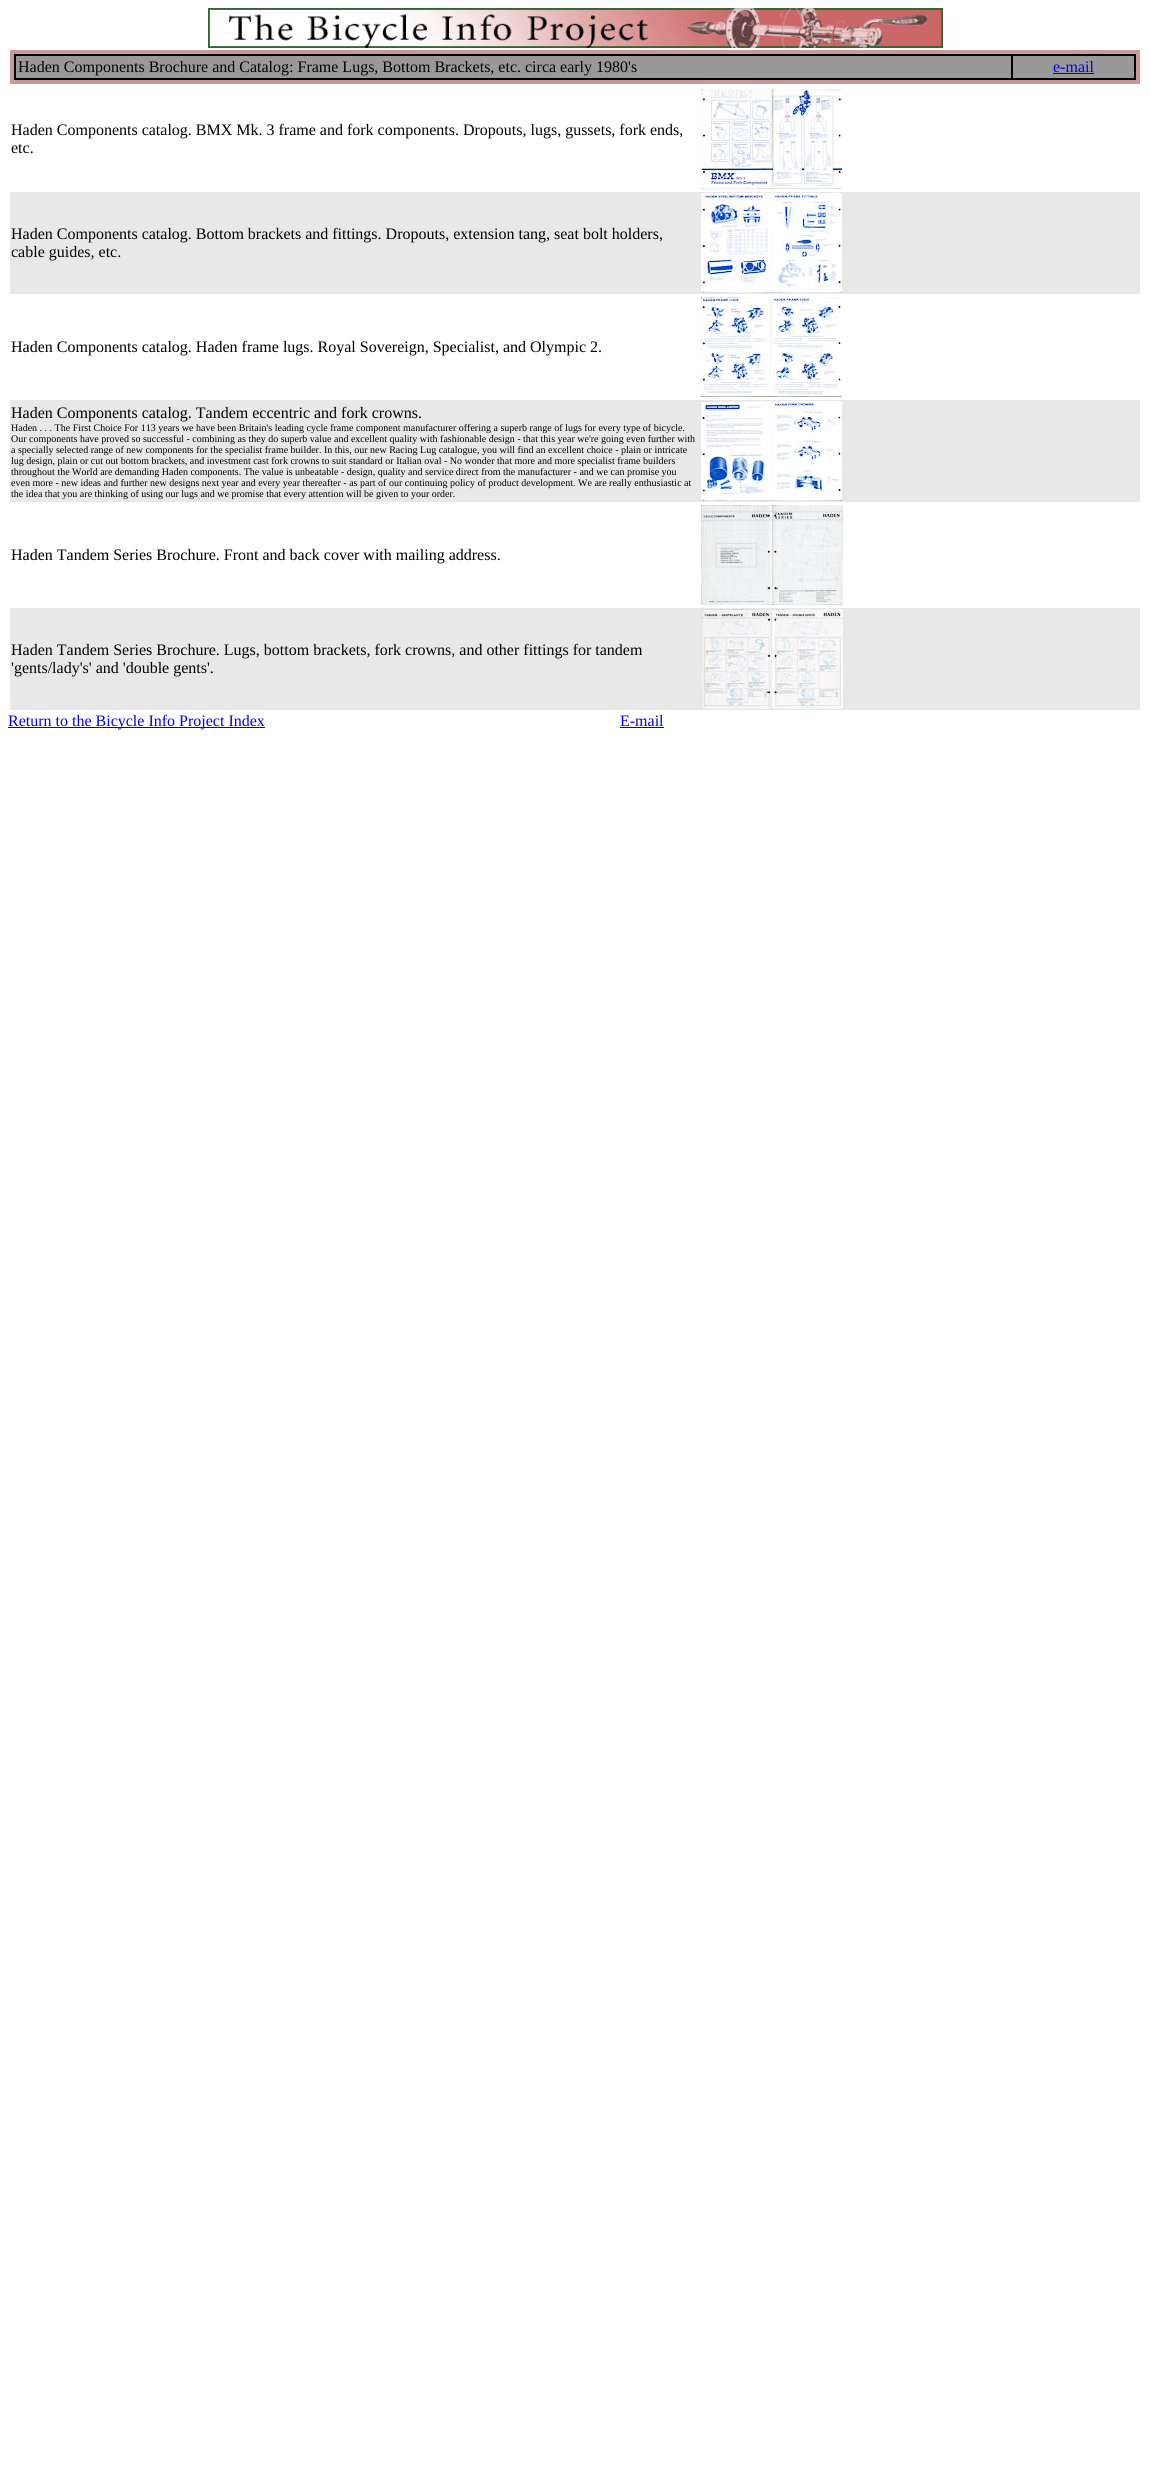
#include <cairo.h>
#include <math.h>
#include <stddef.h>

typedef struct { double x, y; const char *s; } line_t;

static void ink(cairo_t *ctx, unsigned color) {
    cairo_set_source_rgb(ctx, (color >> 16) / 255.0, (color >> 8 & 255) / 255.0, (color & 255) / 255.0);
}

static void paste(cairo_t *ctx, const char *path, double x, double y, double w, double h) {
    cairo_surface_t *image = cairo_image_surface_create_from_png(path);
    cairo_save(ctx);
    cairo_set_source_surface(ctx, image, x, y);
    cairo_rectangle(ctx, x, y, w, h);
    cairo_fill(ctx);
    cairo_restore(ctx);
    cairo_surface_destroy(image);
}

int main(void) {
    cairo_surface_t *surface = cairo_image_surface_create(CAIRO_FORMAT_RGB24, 1150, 2474);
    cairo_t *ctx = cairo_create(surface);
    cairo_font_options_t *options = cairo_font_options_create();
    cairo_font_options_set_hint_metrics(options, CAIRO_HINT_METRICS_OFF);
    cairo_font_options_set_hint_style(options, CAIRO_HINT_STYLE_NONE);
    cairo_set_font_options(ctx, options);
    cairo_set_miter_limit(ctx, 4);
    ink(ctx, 0xFFFFFF);
    cairo_paint(ctx);
    paste(ctx, "media/1.png", 208, 8, 735, 40);
    ink(ctx, 0xCC9999);
    cairo_rectangle(ctx, 10, 50, 1130, 34);
    cairo_fill(ctx);
    cairo_rectangle(ctx, 14.5, 54.5, 1121, 25);
    ink(ctx, 0x000000);
    cairo_set_line_width(ctx, 1);
    cairo_stroke(ctx);
    ink(ctx, 0x999999);
    cairo_rectangle(ctx, 15.5, 55.5, 996, 23);
    cairo_fill_preserve(ctx);
    ink(ctx, 0x000000);
    cairo_stroke(ctx);
    cairo_select_font_face(ctx, "Liberation Serif", CAIRO_FONT_SLANT_NORMAL, CAIRO_FONT_WEIGHT_NORMAL);
    cairo_set_font_size(ctx, 16);
    cairo_move_to(ctx, 18, 72);
    cairo_show_text(ctx, "Haden Components Brochure and Catalog: Frame Lugs, Bottom Brackets, etc. circa early 1980's");
    ink(ctx, 0x999999);
    cairo_rectangle(ctx, 1012.5, 55.5, 122, 23);
    cairo_fill_preserve(ctx);
    ink(ctx, 0x000000);
    cairo_stroke(ctx);
    ink(ctx, 0x0000EE);
    cairo_move_to(ctx, 1053, 72);
    cairo_show_text(ctx, "e-mail");
    cairo_rectangle(ctx, 1053, 73, 41, 1);
    cairo_fill(ctx);
    ink(ctx, 0x000000);
    cairo_move_to(ctx, 11, 135);
    cairo_show_text(ctx, "Haden Components catalog. BMX Mk. 3 frame and fork components. Dropouts, lugs, gussets, fork ends,");
    cairo_move_to(ctx, 11, 153);
    cairo_show_text(ctx, "etc.");
    paste(ctx, "media/2.png", 701, 89, 141, 100);
    ink(ctx, 0xE8E8E8);
    cairo_rectangle(ctx, 10, 192, 1130, 102);
    cairo_fill(ctx);
    ink(ctx, 0x000000);
    cairo_move_to(ctx, 11, 239);
    cairo_show_text(ctx, "Haden Components catalog. Bottom brackets and fittings. Dropouts, extension tang, seat bolt holders,");
    cairo_move_to(ctx, 11, 257);
    cairo_show_text(ctx, "cable guides, etc.");
    paste(ctx, "media/3.png", 701, 193, 141, 100);
    cairo_move_to(ctx, 11, 352);
    cairo_show_text(ctx, "Haden Components catalog. Haden frame lugs. Royal Sovereign, Specialist, and Olympic 2.");
    paste(ctx, "media/4.png", 701, 297, 141, 100);
    ink(ctx, 0xE8E8E8);
    cairo_rectangle(ctx, 10, 400, 1130, 102);
    cairo_fill(ctx);
    ink(ctx, 0x000000);
    cairo_move_to(ctx, 11, 418);
    cairo_show_text(ctx, "Haden Components catalog. Tandem eccentric and fork crowns.");
    cairo_set_font_size(ctx, 10);
    {
        static const line_t items[] = {
            {11, 431, "Haden . . . The First Choice For 113 years we have been Britain's leading cycle frame component manufacturer offering a superb range of lugs for every type of bicycle."},
            {11, 442, "Our components have proved so successful - combining as they do superb value and excellent quality with fashionable design - that this year we're going even further with"},
            {11, 453, "a specially selected range of new components for the specialist frame builder. In this, our new Racing Lug catalogue, you will find an excellent choice - plain or intricate"},
            {11, 464, "lug design, plain or cut out bottom brackets, and investment cast fork crowns to suit standard or Italian oval - No wonder that more and more specialist frame builders"},
            {11, 475, "throughout the World are demanding Haden components. The value is unbeatable - design, quality and service direct from the manufacturer - and we can promise you"},
            {11, 486, "even more - new ideas and further new designs next year and every year thereafter - as part of our continuing policy of product development. We are really enthusiastic at"},
            {11, 497, "the idea that you are thinking of using our lugs and we promise that every attention will be given to your order."},
        };
        for (size_t i = 0; i < sizeof items / sizeof *items; i++) {
            cairo_move_to(ctx, items[i].x, items[i].y);
            cairo_show_text(ctx, items[i].s);
        }
    }
    paste(ctx, "media/5.png", 701, 401, 141, 100);
    cairo_set_font_size(ctx, 16);
    cairo_move_to(ctx, 11, 560);
    cairo_show_text(ctx, "Haden Tandem Series Brochure. Front and back cover with mailing address.");
    paste(ctx, "media/6.png", 701, 505, 142, 100);
    ink(ctx, 0xE8E8E8);
    cairo_rectangle(ctx, 10, 608, 1130, 102);
    cairo_fill(ctx);
    ink(ctx, 0x000000);
    cairo_move_to(ctx, 11, 655);
    cairo_show_text(ctx, "Haden Tandem Series Brochure. Lugs, bottom brackets, fork crowns, and other fittings for tandem");
    cairo_move_to(ctx, 11, 673);
    cairo_show_text(ctx, "'gents/lady's' and 'double gents'.");
    paste(ctx, "media/7.png", 701, 609, 142, 100);
    ink(ctx, 0x0000EE);
    cairo_rectangle(ctx, 8, 727, 257, 1);
    cairo_fill(ctx);
    cairo_move_to(ctx, 8, 726);
    cairo_show_text(ctx, "Return to the Bicycle Info Project Index");
    cairo_move_to(ctx, 620, 726);
    cairo_show_text(ctx, "E-mail");
    cairo_rectangle(ctx, 620, 727, 44, 1);
    cairo_fill(ctx);
    cairo_surface_write_to_png(surface, "image.png");
    cairo_font_options_destroy(options);
    cairo_destroy(ctx);
    cairo_surface_destroy(surface);
    return 0;
}
